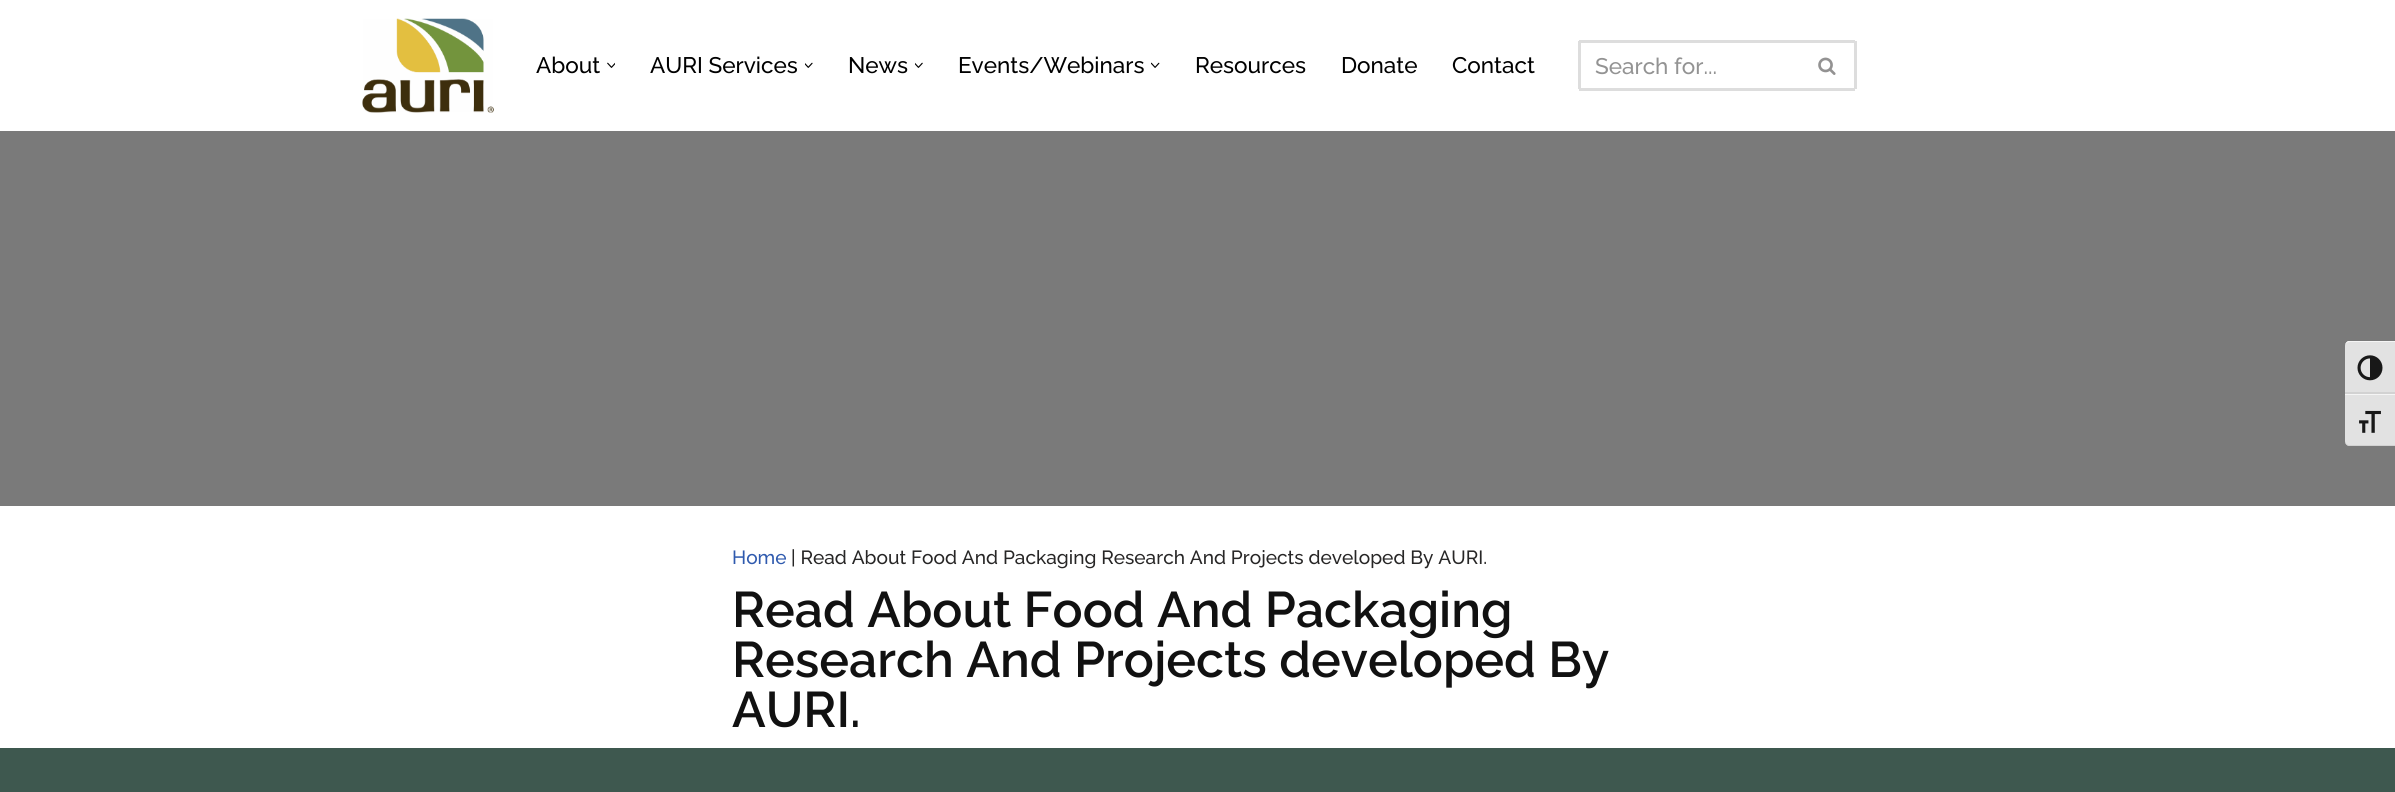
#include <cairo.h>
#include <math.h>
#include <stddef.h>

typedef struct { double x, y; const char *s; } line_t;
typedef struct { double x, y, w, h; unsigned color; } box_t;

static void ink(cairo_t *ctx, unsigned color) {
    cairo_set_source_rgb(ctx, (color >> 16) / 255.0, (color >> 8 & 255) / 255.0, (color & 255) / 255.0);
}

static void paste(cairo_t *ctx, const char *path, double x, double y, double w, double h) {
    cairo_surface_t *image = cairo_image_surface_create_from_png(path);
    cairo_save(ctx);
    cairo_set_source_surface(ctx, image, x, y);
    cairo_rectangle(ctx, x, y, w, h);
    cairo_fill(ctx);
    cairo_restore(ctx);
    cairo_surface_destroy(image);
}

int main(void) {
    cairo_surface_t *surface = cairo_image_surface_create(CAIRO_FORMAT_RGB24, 2395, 792);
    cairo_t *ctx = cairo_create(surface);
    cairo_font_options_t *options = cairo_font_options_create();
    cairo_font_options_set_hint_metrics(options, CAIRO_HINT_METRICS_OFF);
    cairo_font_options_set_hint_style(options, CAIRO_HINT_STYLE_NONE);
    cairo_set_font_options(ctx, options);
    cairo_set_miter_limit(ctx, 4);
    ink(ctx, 0xFFFFFF);
    cairo_paint(ctx);
    paste(ctx, "media/1.png", 362, 18, 132, 95);
    cairo_select_font_face(ctx, "Raleway Medium", CAIRO_FONT_SLANT_NORMAL, CAIRO_FONT_WEIGHT_NORMAL);
    cairo_set_font_size(ctx, 22.5);
    ink(ctx, 0x000000);
    cairo_move_to(ctx, 536, 73);
    cairo_show_text(ctx, "About");
    paste(ctx, "media/2.png", 607, 62, 8, 6);
    cairo_move_to(ctx, 650, 73);
    cairo_show_text(ctx, "AURI Services");
    paste(ctx, "media/3.png", 805, 62, 8, 6);
    cairo_move_to(ctx, 848, 73);
    cairo_show_text(ctx, "News");
    paste(ctx, "media/4.png", 915, 62, 8, 6);
    cairo_move_to(ctx, 958, 73);
    cairo_show_text(ctx, "Events/Webinars");
    paste(ctx, "media/5.png", 1151, 62, 9, 6);
    {
        static const line_t items[] = {
            {1195, 73, "Resources"},
            {1341, 73, "Donate"},
            {1452, 73, "Contact"},
        };
        for (size_t i = 0; i < sizeof items / sizeof *items; i++) {
            cairo_move_to(ctx, items[i].x, items[i].y);
            cairo_show_text(ctx, items[i].s);
        }
    }
    {
        static const box_t items[] = {
            {1579, 40, 276, 3, 0xDDDDDD},
            {1579, 88, 221, 3, 0xDDDDDD},
            {1578, 41, 3, 48, 0xDDDDDD},
        };
        for (size_t i = 0; i < sizeof items / sizeof *items; i++) {
            ink(ctx, items[i].color);
            cairo_rectangle(ctx, items[i].x, items[i].y, items[i].w, items[i].h);
            cairo_fill(ctx);
        }
    }
    ink(ctx, 0x939393);
    cairo_move_to(ctx, 1595, 74);
    cairo_show_text(ctx, "Search for...");
    ink(ctx, 0xDDDDDD);
    cairo_rectangle(ctx, 1854, 41, 3, 48);
    cairo_fill(ctx);
    cairo_rectangle(ctx, 1800, 88, 55, 3);
    cairo_fill(ctx);
    paste(ctx, "media/6.png", 1818, 57, 18, 18);
    ink(ctx, 0x7A7A7A);
    cairo_rectangle(ctx, 0, 131, 2395, 375);
    cairo_fill(ctx);
    cairo_set_font_size(ctx, 19.1);
    ink(ctx, 0x2F5AAE);
    cairo_move_to(ctx, 732, 564);
    cairo_show_text(ctx, "Home");
    ink(ctx, 0x272626);
    cairo_move_to(ctx, 791, 564);
    cairo_show_text(ctx, "| Read About Food And Packaging Research And Projects developed By AURI.");
    cairo_select_font_face(ctx, "Raleway SemiBold", CAIRO_FONT_SLANT_NORMAL, CAIRO_FONT_WEIGHT_NORMAL);
    cairo_set_font_size(ctx, 50);
    ink(ctx, 0x111111);
    {
        static const line_t items[] = {
            {732, 627, "Read About Food And Packaging"},
            {732, 677, "Research And Projects developed By"},
            {732, 727, "AURI."},
        };
        for (size_t i = 0; i < sizeof items / sizeof *items; i++) {
            cairo_move_to(ctx, items[i].x, items[i].y);
            cairo_show_text(ctx, items[i].s);
        }
    }
    ink(ctx, 0x3E584F);
    cairo_rectangle(ctx, 0, 748, 2395, 44);
    cairo_fill(ctx);
    ink(ctx, 0xE2E2E2);
    cairo_new_path(ctx);
    cairo_move_to(ctx, 2350, 341);
    cairo_line_to(ctx, 2395, 341);
    cairo_line_to(ctx, 2395, 394);
    cairo_line_to(ctx, 2345, 394);
    cairo_line_to(ctx, 2345, 346);
    cairo_curve_to(ctx, 2345, 343, 2347, 341, 2350, 341);
    cairo_close_path(ctx);
    cairo_fill(ctx);
    ink(ctx, 0xF5F5F5);
    cairo_new_path(ctx);
    cairo_move_to(ctx, 2350, 342);
    cairo_curve_to(ctx, 2347, 342, 2345, 344, 2345, 346);
    cairo_curve_to(ctx, 2345, 344, 2346, 342, 2348, 341);
    cairo_line_to(ctx, 2395, 341);
    cairo_line_to(ctx, 2395, 342);
    cairo_close_path(ctx);
    cairo_fill(ctx);
    ink(ctx, 0xD2D2D2);
    cairo_rectangle(ctx, 2345, 392, 50, 2);
    cairo_fill(ctx);
    paste(ctx, "media/7.png", 2357, 355, 26, 26);
    ink(ctx, 0xE2E2E2);
    cairo_new_path(ctx);
    cairo_move_to(ctx, 2345, 394);
    cairo_line_to(ctx, 2395, 394);
    cairo_line_to(ctx, 2395, 446);
    cairo_line_to(ctx, 2350, 446);
    cairo_curve_to(ctx, 2347, 446, 2345, 444, 2345, 441);
    cairo_close_path(ctx);
    cairo_fill(ctx);
    ink(ctx, 0xF5F5F5);
    cairo_rectangle(ctx, 2345, 394, 50, 1);
    cairo_fill(ctx);
    ink(ctx, 0xD2D2D2);
    cairo_new_path(ctx);
    cairo_move_to(ctx, 2395, 446);
    cairo_line_to(ctx, 2395, 445);
    cairo_line_to(ctx, 2350, 445);
    cairo_curve_to(ctx, 2347, 445, 2345, 443, 2345, 441);
    cairo_curve_to(ctx, 2345, 444, 2347, 446, 2350, 446);
    cairo_close_path(ctx);
    cairo_fill(ctx);
    paste(ctx, "media/8.png", 2359, 410, 22, 23);
    cairo_surface_write_to_png(surface, "image.png");
    cairo_font_options_destroy(options);
    cairo_destroy(ctx);
    cairo_surface_destroy(surface);
    return 0;
}
